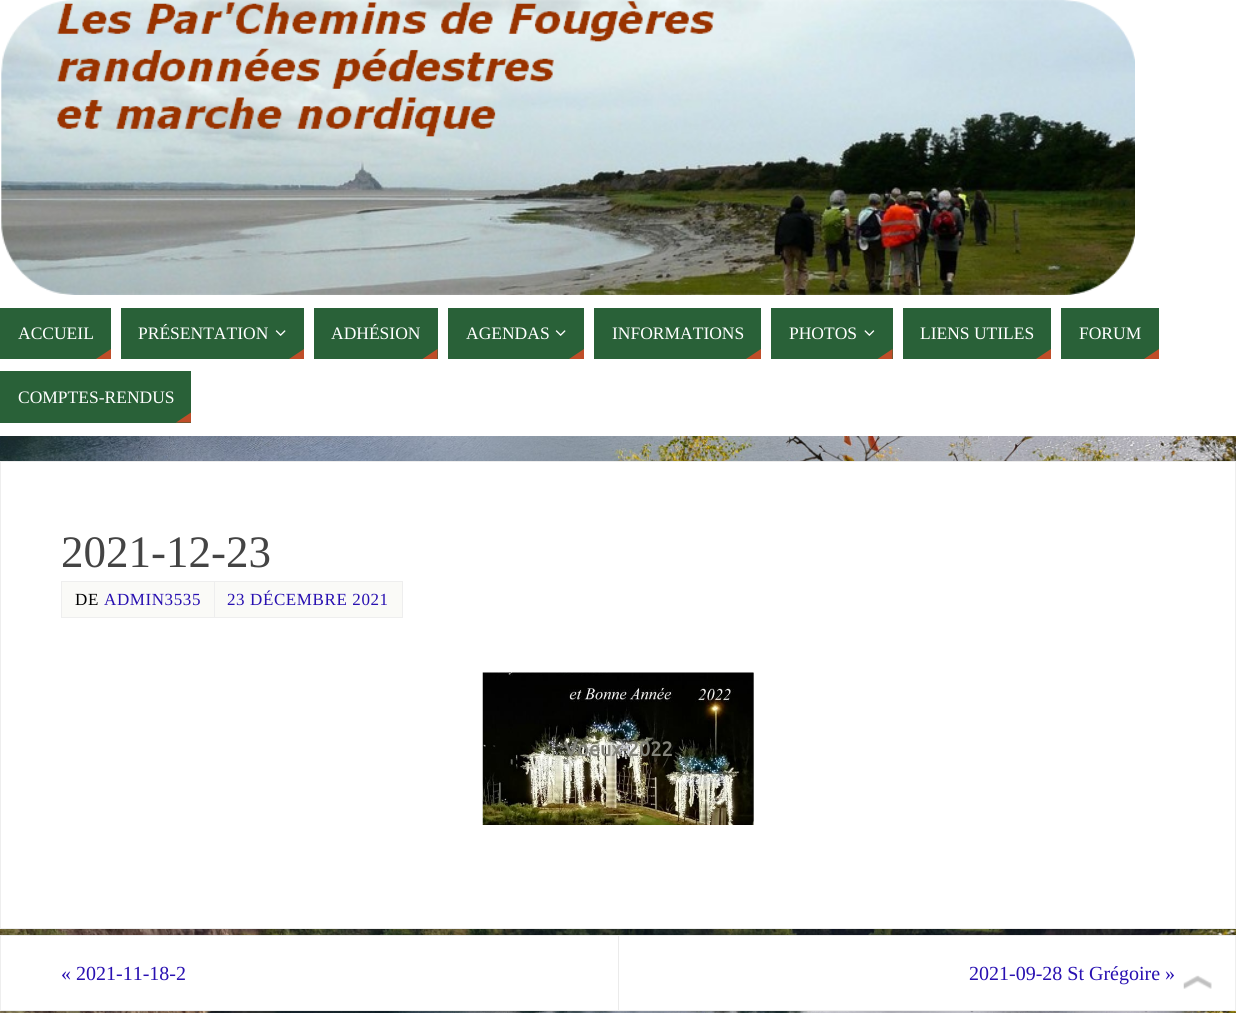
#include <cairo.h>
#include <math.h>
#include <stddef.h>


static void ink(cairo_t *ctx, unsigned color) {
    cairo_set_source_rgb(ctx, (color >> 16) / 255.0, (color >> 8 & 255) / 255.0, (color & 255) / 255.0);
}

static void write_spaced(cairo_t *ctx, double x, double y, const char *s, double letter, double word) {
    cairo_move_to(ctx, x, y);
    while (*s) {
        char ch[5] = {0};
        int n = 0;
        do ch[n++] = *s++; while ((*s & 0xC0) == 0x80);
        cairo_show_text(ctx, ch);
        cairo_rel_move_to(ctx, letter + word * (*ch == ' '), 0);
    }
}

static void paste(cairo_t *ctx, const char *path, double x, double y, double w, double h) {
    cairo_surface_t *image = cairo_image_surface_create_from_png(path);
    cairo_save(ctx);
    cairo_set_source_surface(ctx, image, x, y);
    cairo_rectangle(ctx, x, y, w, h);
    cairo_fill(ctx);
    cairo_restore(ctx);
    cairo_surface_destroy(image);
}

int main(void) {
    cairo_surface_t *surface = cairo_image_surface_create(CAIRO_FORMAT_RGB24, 1236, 1013);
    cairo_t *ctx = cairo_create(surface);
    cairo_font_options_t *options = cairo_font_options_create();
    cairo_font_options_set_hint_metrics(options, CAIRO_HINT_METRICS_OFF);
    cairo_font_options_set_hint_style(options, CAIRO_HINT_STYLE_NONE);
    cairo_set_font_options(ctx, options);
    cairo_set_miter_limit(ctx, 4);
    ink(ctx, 0xFFFFFF);
    cairo_paint(ctx);
    paste(ctx, "media/1.png", 0, 436, 1236, 577);
    paste(ctx, "media/2.png", 1, 0, 1134, 295);
    ink(ctx, 0x296138);
    cairo_rectangle(ctx, 0, 308, 111, 51);
    cairo_fill(ctx);
    cairo_select_font_face(ctx, "Liberation Serif", CAIRO_FONT_SLANT_NORMAL, CAIRO_FONT_WEIGHT_NORMAL);
    cairo_set_font_size(ctx, 17.5);
    ink(ctx, 0xFFFFFF);
    cairo_move_to(ctx, 18, 339);
    cairo_show_text(ctx, "ACCUEIL");
    ink(ctx, 0xBF4D28);
    cairo_new_path(ctx);
    cairo_move_to(ctx, 111, 359);
    cairo_line_to(ctx, 96, 359);
    cairo_line_to(ctx, 111, 349);
    cairo_close_path(ctx);
    cairo_fill(ctx);
    ink(ctx, 0x296138);
    cairo_rectangle(ctx, 121, 308, 183, 51);
    cairo_fill(ctx);
    ink(ctx, 0xFFFFFF);
    cairo_move_to(ctx, 138, 339);
    cairo_show_text(ctx, "PRÉSENTATION");
    paste(ctx, "media/3.png", 275, 330, 11, 6);
    ink(ctx, 0xBF4D28);
    cairo_new_path(ctx);
    cairo_move_to(ctx, 304, 359);
    cairo_line_to(ctx, 289, 359);
    cairo_line_to(ctx, 304, 349);
    cairo_close_path(ctx);
    cairo_fill(ctx);
    ink(ctx, 0x296138);
    cairo_rectangle(ctx, 314, 308, 124, 51);
    cairo_fill(ctx);
    ink(ctx, 0xFFFFFF);
    cairo_move_to(ctx, 331, 339);
    cairo_show_text(ctx, "ADHÉSION");
    ink(ctx, 0xBF4D28);
    cairo_new_path(ctx);
    cairo_move_to(ctx, 437.5, 359);
    cairo_line_to(ctx, 422.5, 359);
    cairo_line_to(ctx, 437.5, 349);
    cairo_close_path(ctx);
    cairo_fill(ctx);
    ink(ctx, 0x296138);
    cairo_rectangle(ctx, 448, 308, 136, 51);
    cairo_fill(ctx);
    ink(ctx, 0xFFFFFF);
    cairo_move_to(ctx, 466, 339);
    cairo_show_text(ctx, "AGENDAS");
    paste(ctx, "media/3.png", 555, 330, 11, 6);
    ink(ctx, 0xBF4D28);
    cairo_new_path(ctx);
    cairo_move_to(ctx, 584, 359);
    cairo_line_to(ctx, 569, 359);
    cairo_line_to(ctx, 584, 349);
    cairo_close_path(ctx);
    cairo_fill(ctx);
    ink(ctx, 0x296138);
    cairo_rectangle(ctx, 594, 308, 167, 51);
    cairo_fill(ctx);
    ink(ctx, 0xFFFFFF);
    cairo_move_to(ctx, 612, 339);
    cairo_show_text(ctx, "INFORMATIONS");
    ink(ctx, 0xBF4D28);
    cairo_new_path(ctx);
    cairo_move_to(ctx, 761, 359);
    cairo_line_to(ctx, 746, 359);
    cairo_line_to(ctx, 761, 349);
    cairo_close_path(ctx);
    cairo_fill(ctx);
    ink(ctx, 0x296138);
    cairo_rectangle(ctx, 771, 308, 122, 51);
    cairo_fill(ctx);
    ink(ctx, 0xFFFFFF);
    cairo_move_to(ctx, 789, 339);
    cairo_show_text(ctx, "PHOTOS");
    paste(ctx, "media/4.png", 864, 330, 11, 6);
    ink(ctx, 0xBF4D28);
    cairo_new_path(ctx);
    cairo_move_to(ctx, 892.5, 359);
    cairo_line_to(ctx, 877.5, 359);
    cairo_line_to(ctx, 892.5, 349);
    cairo_close_path(ctx);
    cairo_fill(ctx);
    ink(ctx, 0x296138);
    cairo_rectangle(ctx, 903, 308, 148, 51);
    cairo_fill(ctx);
    ink(ctx, 0xFFFFFF);
    cairo_move_to(ctx, 920, 339);
    cairo_show_text(ctx, "LIENS UTILES");
    ink(ctx, 0xBF4D28);
    cairo_new_path(ctx);
    cairo_move_to(ctx, 1051, 359);
    cairo_line_to(ctx, 1036, 359);
    cairo_line_to(ctx, 1051, 349);
    cairo_close_path(ctx);
    cairo_fill(ctx);
    ink(ctx, 0x296138);
    cairo_rectangle(ctx, 1061, 308, 98, 51);
    cairo_fill(ctx);
    ink(ctx, 0xFFFFFF);
    cairo_move_to(ctx, 1079, 339);
    cairo_show_text(ctx, "FORUM");
    ink(ctx, 0xBF4D28);
    cairo_new_path(ctx);
    cairo_move_to(ctx, 1159, 359);
    cairo_line_to(ctx, 1144, 359);
    cairo_line_to(ctx, 1159, 349);
    cairo_close_path(ctx);
    cairo_fill(ctx);
    ink(ctx, 0x296138);
    cairo_rectangle(ctx, 0, 371, 191, 52);
    cairo_fill(ctx);
    ink(ctx, 0xFFFFFF);
    cairo_move_to(ctx, 18, 403);
    cairo_show_text(ctx, "COMPTES-RENDUS");
    ink(ctx, 0xBF4D28);
    cairo_new_path(ctx);
    cairo_move_to(ctx, 191, 422.5);
    cairo_line_to(ctx, 176, 422.5);
    cairo_line_to(ctx, 191, 412.5);
    cairo_close_path(ctx);
    cairo_fill(ctx);
    ink(ctx, 0xFFFFFF);
    cairo_rectangle(ctx, 0.5, 461.5, 1235, 467);
    cairo_fill_preserve(ctx);
    ink(ctx, 0xEEEEEE);
    cairo_set_line_width(ctx, 1);
    cairo_stroke(ctx);
    cairo_set_font_size(ctx, 45);
    ink(ctx, 0x444444);
    cairo_move_to(ctx, 61, 567);
    cairo_show_text(ctx, "2021-12-23");
    ink(ctx, 0xFAFAF7);
    cairo_rectangle(ctx, 61.5, 581.5, 153, 36);
    cairo_fill_preserve(ctx);
    ink(ctx, 0xEEEEEE);
    cairo_stroke(ctx);
    cairo_set_font_size(ctx, 17);
    ink(ctx, 0x000000);
    write_spaced(ctx, 75, 605, "DE", 0.6, 0);
    ink(ctx, 0x2810B1);
    write_spaced(ctx, 104, 605, "ADMIN3535", 0.6, 0);
    ink(ctx, 0xFAFAF7);
    cairo_rectangle(ctx, 214.5, 581.5, 188, 36);
    cairo_fill_preserve(ctx);
    ink(ctx, 0xEEEEEE);
    cairo_stroke(ctx);
    ink(ctx, 0x2810B1);
    write_spaced(ctx, 227, 605, "23 DÉCEMBRE 2021", 0.6, 0);
    ink(ctx, 0xB3B3B3);
    cairo_rectangle(ctx, 753, 673, 1, 152);
    cairo_fill(ctx);
    paste(ctx, "media/5.png", 482, 672, 272, 153);
    cairo_select_font_face(ctx, "Ubuntu", CAIRO_FONT_SLANT_NORMAL, CAIRO_FONT_WEIGHT_BOLD);
    cairo_set_font_size(ctx, 20);
    ink(ctx, 0x84847B);
    cairo_move_to(ctx, 564, 756);
    cairo_show_text(ctx, "Voeux-2022");
    ink(ctx, 0xFFFFFF);
    cairo_rectangle(ctx, 0.5, 935.5, 1235, 75);
    cairo_fill_preserve(ctx);
    ink(ctx, 0xEEEEEE);
    cairo_stroke(ctx);
    ink(ctx, 0xEBEBEB);
    cairo_rectangle(ctx, 618, 936, 1, 74);
    cairo_fill(ctx);
    cairo_select_font_face(ctx, "Liberation Serif", CAIRO_FONT_SLANT_NORMAL, CAIRO_FONT_WEIGHT_NORMAL);
    ink(ctx, 0x2810B1);
    cairo_move_to(ctx, 61, 980);
    cairo_show_text(ctx, "« 2021-11-18-2");
    cairo_move_to(ctx, 969, 980);
    cairo_show_text(ctx, "2021-09-28 St Grégoire »");
    paste(ctx, "media/6.png", 1183, 975, 29, 14);
    cairo_surface_write_to_png(surface, "image.png");
    cairo_font_options_destroy(options);
    cairo_destroy(ctx);
    cairo_surface_destroy(surface);
    return 0;
}
